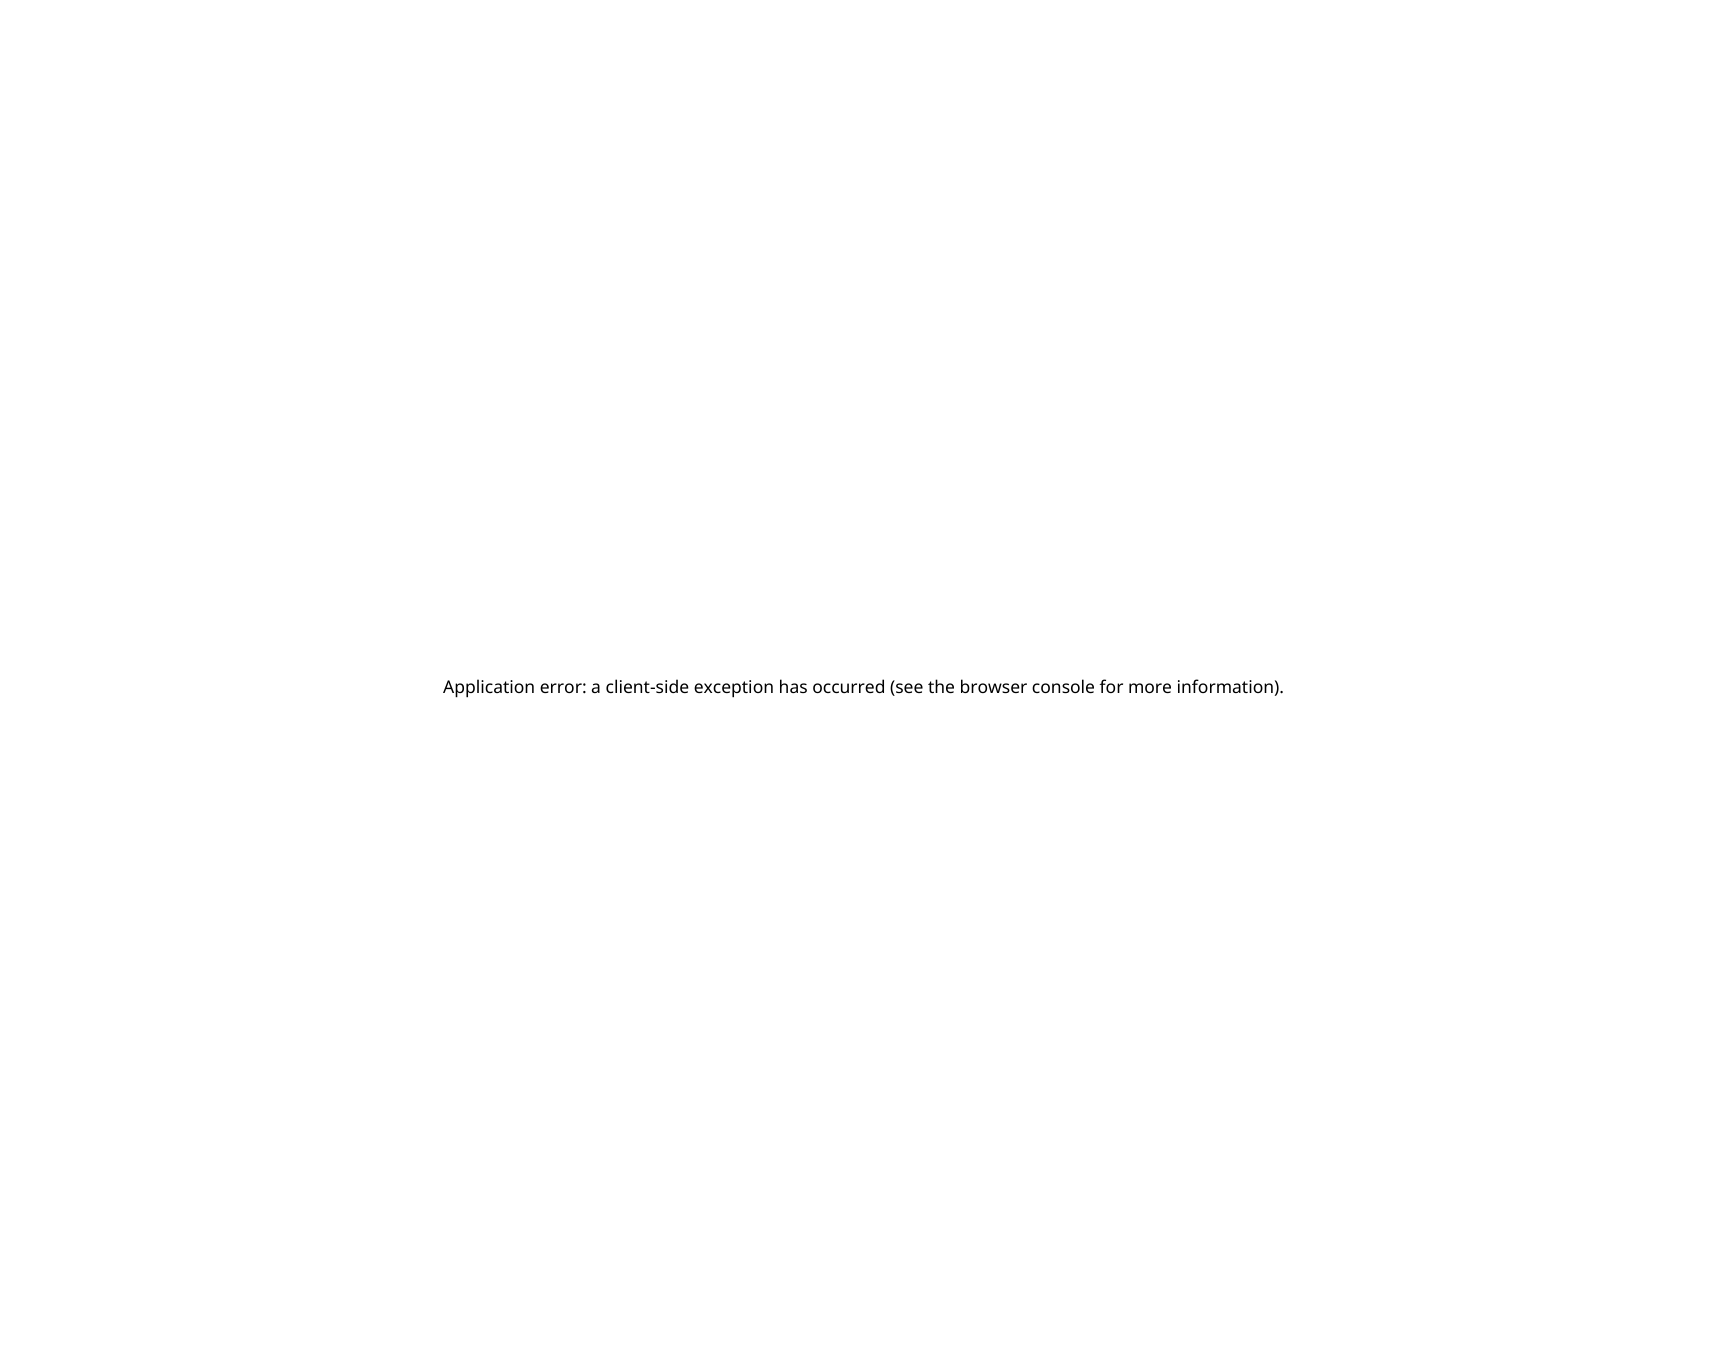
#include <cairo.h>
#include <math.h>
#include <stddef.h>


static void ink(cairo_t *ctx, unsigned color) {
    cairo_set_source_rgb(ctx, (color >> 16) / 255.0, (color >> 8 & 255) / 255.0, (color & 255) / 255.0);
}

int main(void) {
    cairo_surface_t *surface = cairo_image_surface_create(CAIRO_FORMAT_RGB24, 1726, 1372);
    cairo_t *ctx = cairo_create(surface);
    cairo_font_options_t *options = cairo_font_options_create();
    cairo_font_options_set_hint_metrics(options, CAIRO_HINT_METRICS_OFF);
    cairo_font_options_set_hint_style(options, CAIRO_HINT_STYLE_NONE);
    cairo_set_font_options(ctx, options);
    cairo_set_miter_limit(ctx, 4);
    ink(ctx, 0xFFFFFF);
    cairo_paint(ctx);
    cairo_select_font_face(ctx, "Noto Sans", CAIRO_FONT_SLANT_NORMAL, CAIRO_FONT_WEIGHT_NORMAL);
    cairo_set_font_size(ctx, 17.5);
    ink(ctx, 0x000000);
    cairo_move_to(ctx, 443, 693);
    cairo_show_text(ctx, "Application error: a client-side exception has occurred (see the browser console for more information).");
    cairo_surface_write_to_png(surface, "image.png");
    cairo_font_options_destroy(options);
    cairo_destroy(ctx);
    cairo_surface_destroy(surface);
    return 0;
}
